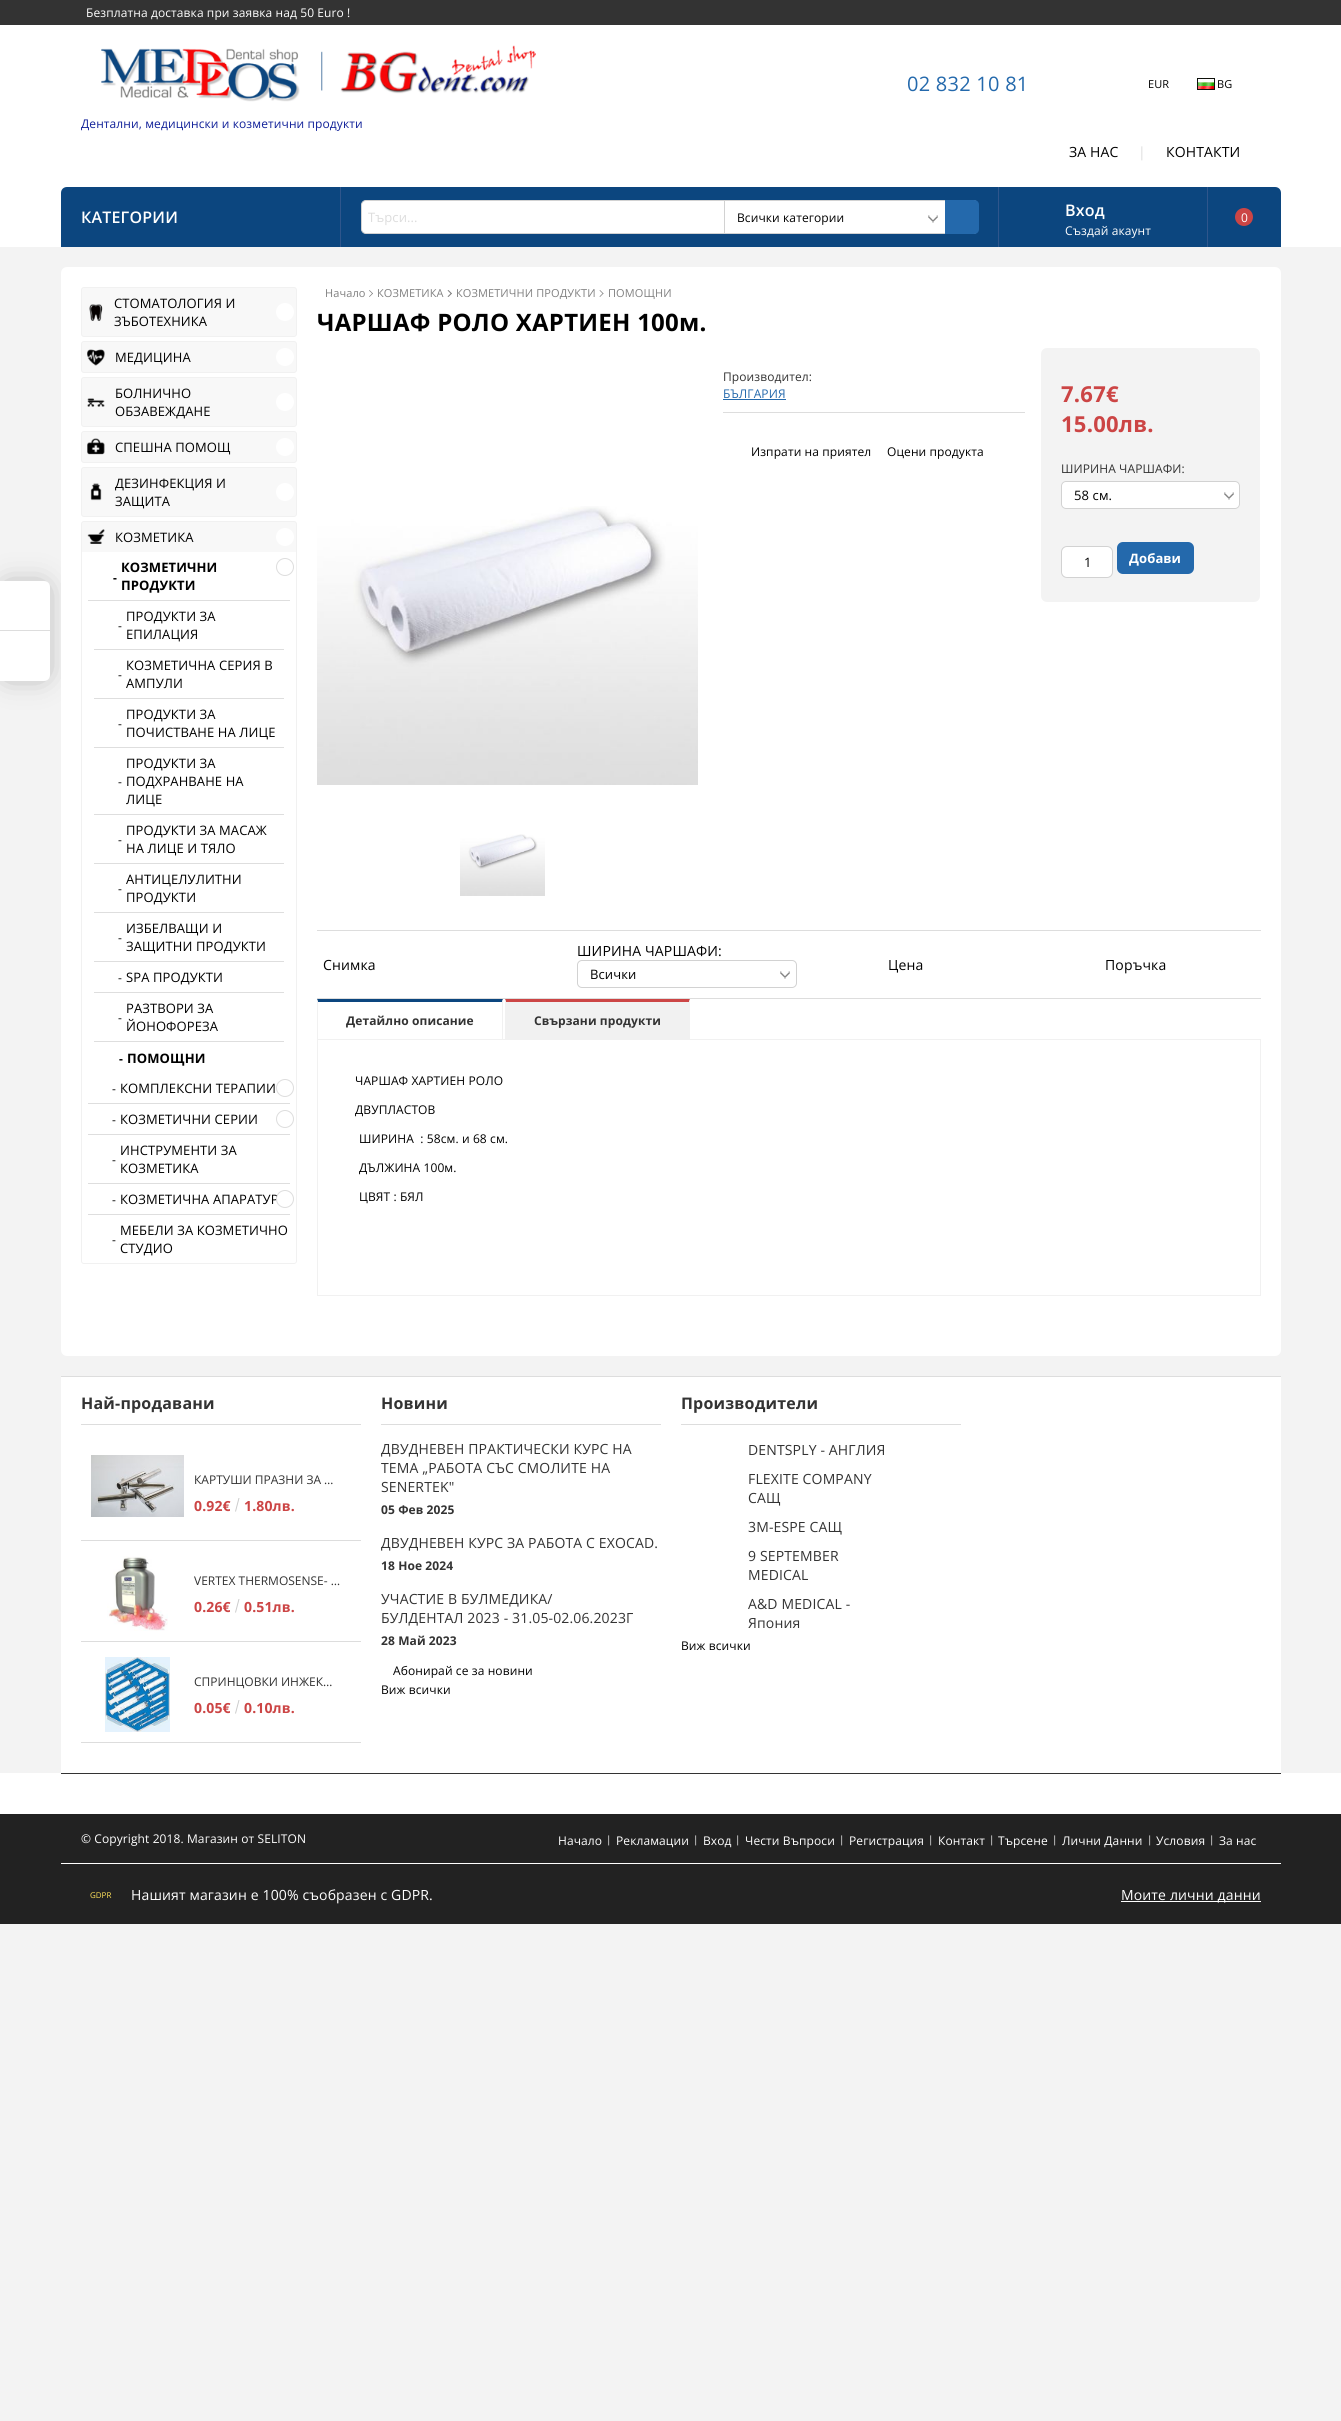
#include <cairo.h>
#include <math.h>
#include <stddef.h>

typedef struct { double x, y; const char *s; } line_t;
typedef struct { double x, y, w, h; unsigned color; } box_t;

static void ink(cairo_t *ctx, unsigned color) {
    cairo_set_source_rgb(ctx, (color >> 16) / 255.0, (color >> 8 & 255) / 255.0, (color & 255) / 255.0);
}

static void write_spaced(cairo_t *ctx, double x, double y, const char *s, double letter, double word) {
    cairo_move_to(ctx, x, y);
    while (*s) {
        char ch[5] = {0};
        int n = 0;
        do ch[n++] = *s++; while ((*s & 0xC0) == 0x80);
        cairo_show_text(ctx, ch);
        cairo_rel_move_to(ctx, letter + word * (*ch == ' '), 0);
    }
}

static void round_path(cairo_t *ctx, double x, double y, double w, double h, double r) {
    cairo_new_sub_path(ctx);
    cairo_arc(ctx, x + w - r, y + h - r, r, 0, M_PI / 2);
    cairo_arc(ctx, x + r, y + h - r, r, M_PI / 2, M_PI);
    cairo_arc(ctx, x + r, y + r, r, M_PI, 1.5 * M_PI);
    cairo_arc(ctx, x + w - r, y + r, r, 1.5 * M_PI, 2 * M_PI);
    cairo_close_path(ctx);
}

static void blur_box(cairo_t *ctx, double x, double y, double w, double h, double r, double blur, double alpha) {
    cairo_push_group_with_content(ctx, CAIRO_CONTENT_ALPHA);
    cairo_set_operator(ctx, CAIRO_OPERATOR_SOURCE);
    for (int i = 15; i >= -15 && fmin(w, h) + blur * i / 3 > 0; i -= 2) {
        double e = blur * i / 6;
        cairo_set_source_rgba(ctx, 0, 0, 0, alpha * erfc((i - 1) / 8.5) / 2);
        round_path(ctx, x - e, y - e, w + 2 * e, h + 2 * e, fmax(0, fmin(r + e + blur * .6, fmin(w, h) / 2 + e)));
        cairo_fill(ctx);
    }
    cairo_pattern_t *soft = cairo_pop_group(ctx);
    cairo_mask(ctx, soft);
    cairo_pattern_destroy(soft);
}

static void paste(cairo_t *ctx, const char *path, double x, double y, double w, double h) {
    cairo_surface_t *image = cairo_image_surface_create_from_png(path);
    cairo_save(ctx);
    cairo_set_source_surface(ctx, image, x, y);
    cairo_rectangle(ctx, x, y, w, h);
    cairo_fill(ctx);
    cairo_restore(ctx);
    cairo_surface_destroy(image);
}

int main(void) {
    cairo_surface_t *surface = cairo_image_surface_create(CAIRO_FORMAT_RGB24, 1341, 2421);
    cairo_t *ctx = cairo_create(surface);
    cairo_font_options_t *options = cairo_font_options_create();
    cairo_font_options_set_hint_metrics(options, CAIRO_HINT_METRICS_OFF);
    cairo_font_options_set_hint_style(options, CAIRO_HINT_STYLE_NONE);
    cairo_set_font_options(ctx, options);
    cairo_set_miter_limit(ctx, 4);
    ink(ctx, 0xF3F3F3);
    cairo_paint(ctx);
    ink(ctx, 0xFFFFFF);
    cairo_rectangle(ctx, 0, 25, 1341, 222);
    cairo_fill(ctx);
    ink(ctx, 0x333333);
    cairo_rectangle(ctx, 0, 0, 1341, 25);
    cairo_fill(ctx);
    cairo_select_font_face(ctx, "Open Sans", CAIRO_FONT_SLANT_NORMAL, CAIRO_FONT_WEIGHT_NORMAL);
    cairo_set_font_size(ctx, 12);
    ink(ctx, 0xFFFFFF);
    write_spaced(ctx, 86, 17, "Безплатна доставка при заявка над 50 Euro !", 0.1, 0);
    cairo_set_font_size(ctx, 20);
    ink(ctx, 0x2469AC);
    write_spaced(ctx, 907, 91, "02 832 10 81", 0.25, 0);
    cairo_set_font_size(ctx, 11);
    ink(ctx, 0x000000);
    write_spaced(ctx, 1148, 88, "EUR", 0.1, 0);
    paste(ctx, "media/1.png", 1197, 78, 18, 12);
    write_spaced(ctx, 1217, 88, "BG", 0.1, 0);
    paste(ctx, "media/2.png", 101, 45, 435, 57);
    cairo_set_font_size(ctx, 12);
    ink(ctx, 0x112199);
    write_spaced(ctx, 81, 128, "Дентални, медицински и козметични продукти", 0.1, 0);
    cairo_set_font_size(ctx, 14);
    ink(ctx, 0x000000);
    write_spaced(ctx, 1069, 157, "ЗА НАС", 0.15, 0);
    ink(ctx, 0xDDDDDD);
    write_spaced(ctx, 1138, 157, "|", 0.15, 0);
    ink(ctx, 0x000000);
    write_spaced(ctx, 1166, 157, "КОНТАКТИ", 0.15, 0);
    ink(ctx, 0x0C467F);
    cairo_new_path(ctx);
    cairo_move_to(ctx, 67, 187);
    cairo_line_to(ctx, 1275, 187);
    cairo_curve_to(ctx, 1278.5, 187, 1281, 189.5, 1281, 193);
    cairo_line_to(ctx, 1281, 247);
    cairo_line_to(ctx, 61, 247);
    cairo_line_to(ctx, 61, 193);
    cairo_curve_to(ctx, 61, 189.5, 63.5, 187, 67, 187);
    cairo_close_path(ctx);
    cairo_fill(ctx);
    ink(ctx, 0x2F568C);
    cairo_rectangle(ctx, 340, 187, 1, 60);
    cairo_fill(ctx);
    cairo_select_font_face(ctx, "Open Sans SemiBold", CAIRO_FONT_SLANT_NORMAL, CAIRO_FONT_WEIGHT_NORMAL);
    cairo_set_font_size(ctx, 16);
    ink(ctx, 0xFFFFFF);
    write_spaced(ctx, 81, 223, "КАТЕГОРИИ", 0.2, 0);
    ink(ctx, 0x2F568C);
    cairo_rectangle(ctx, 998, 187, 1, 60);
    cairo_fill(ctx);
    ink(ctx, 0xFFFFFF);
    round_path(ctx, 361.5, 200.5, 616, 33, 4.5);
    cairo_fill_preserve(ctx);
    ink(ctx, 0xD2D2D2);
    cairo_set_line_width(ctx, 1);
    cairo_stroke(ctx);
    cairo_select_font_face(ctx, "Open Sans", CAIRO_FONT_SLANT_NORMAL, CAIRO_FONT_WEIGHT_NORMAL);
    cairo_set_font_size(ctx, 13);
    ink(ctx, 0xDDDDDD);
    write_spaced(ctx, 368, 222, "Търси...", 0.1, 0);
    paste(ctx, "media/3.png", 928, 215, 10, 8);
    ink(ctx, 0xD2D2D2);
    cairo_rectangle(ctx, 724, 200, 1, 34);
    cairo_fill(ctx);
    cairo_set_font_size(ctx, 12);
    ink(ctx, 0x000000);
    write_spaced(ctx, 737, 222, "Всички категории", 0.1, 0);
    ink(ctx, 0x2469AC);
    cairo_new_path(ctx);
    cairo_move_to(ctx, 945, 200);
    cairo_line_to(ctx, 974, 200);
    cairo_curve_to(ctx, 977, 200, 979, 202, 979, 205);
    cairo_line_to(ctx, 979, 229);
    cairo_curve_to(ctx, 979, 232, 977, 234, 974, 234);
    cairo_line_to(ctx, 945, 234);
    cairo_close_path(ctx);
    cairo_fill(ctx);
    cairo_select_font_face(ctx, "Open Sans SemiBold", CAIRO_FONT_SLANT_NORMAL, CAIRO_FONT_WEIGHT_NORMAL);
    cairo_set_font_size(ctx, 16);
    ink(ctx, 0xFFFFFF);
    write_spaced(ctx, 1065, 216, "Вход", 0.2, 0);
    cairo_select_font_face(ctx, "Open Sans", CAIRO_FONT_SLANT_NORMAL, CAIRO_FONT_WEIGHT_NORMAL);
    cairo_set_font_size(ctx, 12);
    write_spaced(ctx, 1065, 235, "Създай акаунт", 0.1, 0);
    ink(ctx, 0x2F568C);
    cairo_rectangle(ctx, 1207, 187, 1, 60);
    cairo_fill(ctx);
    ink(ctx, 0xCC4545);
    cairo_arc(ctx, 1244, 217, 9, 0, 2 * M_PI);
    cairo_fill(ctx);
    ink(ctx, 0xFFFFFF);
    write_spaced(ctx, 1241, 222, "0", 0.1, 0);
    ink(ctx, 0x999999);
    blur_box(ctx, 8, 589, 34, 84, 0, 15, 1);
    ink(ctx, 0xFFFFFF);
    cairo_new_path(ctx);
    cairo_move_to(ctx, 0, 581);
    cairo_line_to(ctx, 44, 581);
    cairo_curve_to(ctx, 47.5, 581, 50, 583.5, 50, 587);
    cairo_line_to(ctx, 50, 675);
    cairo_curve_to(ctx, 50, 678.5, 47.5, 681, 44, 681);
    cairo_line_to(ctx, 0, 681);
    cairo_close_path(ctx);
    cairo_fill(ctx);
    ink(ctx, 0xDDDDDD);
    cairo_rectangle(ctx, 0, 630, 50, 1);
    cairo_fill(ctx);
    ink(ctx, 0xFFFFFF);
    round_path(ctx, 61, 267, 1220, 1089, 6);
    cairo_fill(ctx);
    ink(ctx, 0xF8F8F8);
    round_path(ctx, 81.5, 287.5, 215, 49, 2.5);
    cairo_fill_preserve(ctx);
    ink(ctx, 0xF1F1F1);
    cairo_stroke(ctx);
    paste(ctx, "media/4.png", 89, 304, 14, 17);
    cairo_set_font_size(ctx, 13);
    ink(ctx, 0x000000);
    write_spaced(ctx, 114, 308, "СТОМАТОЛОГИЯ И", 0.1, 0);
    write_spaced(ctx, 114, 326, "ЗЪБОТЕХНИКА", 0.1, 0);
    ink(ctx, 0xFFFFFF);
    cairo_new_path(ctx);
    cairo_arc(ctx, 285, 312, 9, 0, 2 * M_PI);
    cairo_fill(ctx);
    ink(ctx, 0xF8F8F8);
    round_path(ctx, 81.5, 341.5, 215, 31, 2.5);
    cairo_fill_preserve(ctx);
    ink(ctx, 0xF1F1F1);
    cairo_stroke(ctx);
    paste(ctx, "media/5.png", 87, 349, 18, 17);
    ink(ctx, 0x000000);
    write_spaced(ctx, 115, 362, "МЕДИЦИНА", 0.1, 0);
    ink(ctx, 0xFFFFFF);
    cairo_new_path(ctx);
    cairo_arc(ctx, 285, 357, 9, 0, 2 * M_PI);
    cairo_fill(ctx);
    ink(ctx, 0xF8F8F8);
    round_path(ctx, 81.5, 377.5, 215, 49, 2.5);
    cairo_fill_preserve(ctx);
    ink(ctx, 0xF1F1F1);
    cairo_stroke(ctx);
    paste(ctx, "media/6.png", 87, 398, 18, 9);
    ink(ctx, 0x000000);
    write_spaced(ctx, 115, 398, "БОЛНИЧНО", 0.1, 0);
    write_spaced(ctx, 115, 416, "ОБЗАВЕЖДАНЕ", 0.1, 0);
    ink(ctx, 0xFFFFFF);
    cairo_new_path(ctx);
    cairo_arc(ctx, 285, 402, 9, 0, 2 * M_PI);
    cairo_fill(ctx);
    ink(ctx, 0xF8F8F8);
    round_path(ctx, 81.5, 431.5, 215, 31, 2.5);
    cairo_fill_preserve(ctx);
    ink(ctx, 0xF1F1F1);
    cairo_stroke(ctx);
    paste(ctx, "media/7.png", 87, 438, 18, 17);
    ink(ctx, 0x000000);
    write_spaced(ctx, 115, 452, "СПЕШНА ПОМОЩ", 0.1, 0);
    ink(ctx, 0xFFFFFF);
    cairo_new_path(ctx);
    cairo_arc(ctx, 285, 447, 9, 0, 2 * M_PI);
    cairo_fill(ctx);
    ink(ctx, 0xF8F8F8);
    round_path(ctx, 81.5, 467.5, 215, 49, 2.5);
    cairo_fill_preserve(ctx);
    ink(ctx, 0xF1F1F1);
    cairo_stroke(ctx);
    paste(ctx, "media/8.png", 90, 483, 12, 18);
    ink(ctx, 0x000000);
    write_spaced(ctx, 115, 488, "ДЕЗИНФЕКЦИЯ И", 0.1, 0);
    write_spaced(ctx, 115, 506, "ЗАЩИТА", 0.1, 0);
    ink(ctx, 0xFFFFFF);
    cairo_new_path(ctx);
    cairo_arc(ctx, 285, 492, 9, 0, 2 * M_PI);
    cairo_fill(ctx);
    ink(ctx, 0xF8F8F8);
    round_path(ctx, 81.5, 521.5, 215, 742, 2.5);
    cairo_fill_preserve(ctx);
    ink(ctx, 0xF1F1F1);
    cairo_stroke(ctx);
    paste(ctx, "media/9.png", 87, 529, 18, 15);
    ink(ctx, 0x000000);
    write_spaced(ctx, 115, 542, "КОЗМЕТИКА", 0.1, 0);
    ink(ctx, 0xFFFFFF);
    cairo_new_path(ctx);
    cairo_arc(ctx, 285, 537, 9, 0, 2 * M_PI);
    cairo_fill(ctx);
    cairo_rectangle(ctx, 82, 552, 214, 663);
    cairo_fill(ctx);
    ink(ctx, 0xDEDEDE);
    cairo_rectangle(ctx, 88, 600, 202, 1);
    cairo_fill(ctx);
    cairo_select_font_face(ctx, "Open Sans", CAIRO_FONT_SLANT_NORMAL, CAIRO_FONT_WEIGHT_BOLD);
    cairo_set_font_size(ctx, 12);
    ink(ctx, 0x000000);
    write_spaced(ctx, 113, 582, "-", 0.1, 0);
    cairo_set_font_size(ctx, 13);
    write_spaced(ctx, 121, 572, "КОЗМЕТИЧНИ", 0.1, 0);
    write_spaced(ctx, 121, 590, "ПРОДУКТИ", 0.1, 0);
    cairo_new_path(ctx);
    cairo_arc(ctx, 285, 567, 8.5, 0, 2 * M_PI);
    ink(ctx, 0xDDDDDD);
    cairo_stroke(ctx);
    ink(ctx, 0xDEDEDE);
    cairo_rectangle(ctx, 94, 649, 190, 1);
    cairo_fill(ctx);
    cairo_select_font_face(ctx, "Open Sans", CAIRO_FONT_SLANT_NORMAL, CAIRO_FONT_WEIGHT_NORMAL);
    cairo_set_font_size(ctx, 12);
    ink(ctx, 0x000000);
    write_spaced(ctx, 118, 630, "-", 0.1, 0);
    cairo_set_font_size(ctx, 13);
    write_spaced(ctx, 126, 621, "ПРОДУКТИ ЗА", 0.1, 0);
    write_spaced(ctx, 126, 639, "ЕПИЛАЦИЯ", 0.1, 0);
    ink(ctx, 0xDEDEDE);
    cairo_rectangle(ctx, 94, 698, 190, 1);
    cairo_fill(ctx);
    cairo_set_font_size(ctx, 12);
    ink(ctx, 0x000000);
    write_spaced(ctx, 118, 679, "-", 0.1, 0);
    cairo_set_font_size(ctx, 13);
    write_spaced(ctx, 126, 670, "КОЗМЕТИЧНА СЕРИЯ В", 0.1, 0);
    write_spaced(ctx, 126, 688, "АМПУЛИ", 0.1, 0);
    ink(ctx, 0xDEDEDE);
    cairo_rectangle(ctx, 94, 747, 190, 1);
    cairo_fill(ctx);
    cairo_set_font_size(ctx, 12);
    ink(ctx, 0x000000);
    write_spaced(ctx, 118, 728, "-", 0.1, 0);
    cairo_set_font_size(ctx, 13);
    write_spaced(ctx, 126, 719, "ПРОДУКТИ ЗА", 0.1, 0);
    write_spaced(ctx, 126, 737, "ПОЧИСТВАНЕ НА ЛИЦЕ", 0.1, 0);
    ink(ctx, 0xDEDEDE);
    cairo_rectangle(ctx, 94, 814, 190, 1);
    cairo_fill(ctx);
    cairo_set_font_size(ctx, 12);
    ink(ctx, 0x000000);
    write_spaced(ctx, 118, 786, "-", 0.1, 0);
    cairo_set_font_size(ctx, 13);
    {
        static const line_t items[] = {
            {126, 768, "ПРОДУКТИ ЗА"},
            {126, 786, "ПОДХРАНВАНЕ НА"},
            {126, 804, "ЛИЦЕ"},
        };
        for (size_t i = 0; i < sizeof items / sizeof *items; i++) {
            write_spaced(ctx, items[i].x, items[i].y, items[i].s, 0.1, 0);
        }
    }
    ink(ctx, 0xDEDEDE);
    cairo_rectangle(ctx, 94, 863, 190, 1);
    cairo_fill(ctx);
    cairo_set_font_size(ctx, 12);
    ink(ctx, 0x000000);
    write_spaced(ctx, 118, 844, "-", 0.1, 0);
    cairo_set_font_size(ctx, 13);
    write_spaced(ctx, 126, 835, "ПРОДУКТИ ЗА МАСАЖ", 0.1, 0);
    write_spaced(ctx, 126, 853, "НА ЛИЦЕ И ТЯЛО", 0.1, 0);
    ink(ctx, 0xDEDEDE);
    cairo_rectangle(ctx, 94, 912, 190, 1);
    cairo_fill(ctx);
    cairo_set_font_size(ctx, 12);
    ink(ctx, 0x000000);
    write_spaced(ctx, 118, 893, "-", 0.1, 0);
    cairo_set_font_size(ctx, 13);
    write_spaced(ctx, 126, 884, "АНТИЦЕЛУЛИТНИ", 0.1, 0);
    write_spaced(ctx, 126, 902, "ПРОДУКТИ", 0.1, 0);
    ink(ctx, 0xDEDEDE);
    cairo_rectangle(ctx, 94, 961, 190, 1);
    cairo_fill(ctx);
    cairo_set_font_size(ctx, 12);
    ink(ctx, 0x000000);
    write_spaced(ctx, 118, 942, "-", 0.1, 0);
    cairo_set_font_size(ctx, 13);
    write_spaced(ctx, 126, 933, "ИЗБЕЛВАЩИ И", 0.1, 0);
    write_spaced(ctx, 126, 951, "ЗАЩИТНИ ПРОДУКТИ", 0.1, 0);
    ink(ctx, 0xDEDEDE);
    cairo_rectangle(ctx, 94, 992, 190, 1);
    cairo_fill(ctx);
    cairo_set_font_size(ctx, 12);
    ink(ctx, 0x000000);
    write_spaced(ctx, 118, 982, "-", 0.1, 0);
    cairo_set_font_size(ctx, 13);
    write_spaced(ctx, 126, 982, "SPA ПРОДУКТИ", 0.1, 0);
    ink(ctx, 0xDEDEDE);
    cairo_rectangle(ctx, 94, 1041, 190, 1);
    cairo_fill(ctx);
    cairo_set_font_size(ctx, 12);
    ink(ctx, 0x000000);
    write_spaced(ctx, 118, 1022, "-", 0.1, 0);
    cairo_set_font_size(ctx, 13);
    write_spaced(ctx, 126, 1013, "РАЗТВОРИ ЗА", 0.1, 0);
    write_spaced(ctx, 126, 1031, "ЙОНОФОРЕЗА", 0.1, 0);
    cairo_select_font_face(ctx, "Open Sans", CAIRO_FONT_SLANT_NORMAL, CAIRO_FONT_WEIGHT_BOLD);
    cairo_set_font_size(ctx, 12);
    write_spaced(ctx, 119, 1063, "-", 0.1, 0);
    cairo_set_font_size(ctx, 13);
    write_spaced(ctx, 127, 1063, "ПОМОЩНИ", 0.1, 0);
    ink(ctx, 0xDEDEDE);
    cairo_rectangle(ctx, 88, 1103, 202, 1);
    cairo_fill(ctx);
    cairo_select_font_face(ctx, "Open Sans", CAIRO_FONT_SLANT_NORMAL, CAIRO_FONT_WEIGHT_NORMAL);
    cairo_set_font_size(ctx, 12);
    ink(ctx, 0x000000);
    write_spaced(ctx, 112, 1093, "-", 0.1, 0);
    cairo_set_font_size(ctx, 13);
    write_spaced(ctx, 120, 1093, "КОМПЛЕКСНИ ТЕРАПИИ", 0.1, 0);
    cairo_new_path(ctx);
    cairo_arc(ctx, 285, 1088, 8.5, 0, 2 * M_PI);
    ink(ctx, 0xDDDDDD);
    cairo_stroke(ctx);
    ink(ctx, 0xDEDEDE);
    cairo_rectangle(ctx, 88, 1134, 202, 1);
    cairo_fill(ctx);
    cairo_set_font_size(ctx, 12);
    ink(ctx, 0x000000);
    write_spaced(ctx, 112, 1124, "-", 0.1, 0);
    cairo_set_font_size(ctx, 13);
    write_spaced(ctx, 120, 1124, "КОЗМЕТИЧНИ СЕРИИ", 0.1, 0);
    cairo_new_path(ctx);
    cairo_arc(ctx, 285, 1119, 8.5, 0, 2 * M_PI);
    ink(ctx, 0xDDDDDD);
    cairo_stroke(ctx);
    ink(ctx, 0xDEDEDE);
    cairo_rectangle(ctx, 88, 1183, 202, 1);
    cairo_fill(ctx);
    cairo_set_font_size(ctx, 12);
    ink(ctx, 0x000000);
    write_spaced(ctx, 112, 1164, "-", 0.1, 0);
    cairo_set_font_size(ctx, 13);
    write_spaced(ctx, 120, 1155, "ИНСТРУМЕНТИ ЗА", 0.1, 0);
    write_spaced(ctx, 120, 1173, "КОЗМЕТИКА", 0.1, 0);
    ink(ctx, 0xDEDEDE);
    cairo_rectangle(ctx, 88, 1214, 202, 1);
    cairo_fill(ctx);
    cairo_set_font_size(ctx, 12);
    ink(ctx, 0x000000);
    write_spaced(ctx, 112, 1204, "-", 0.1, 0);
    cairo_set_font_size(ctx, 13);
    write_spaced(ctx, 120, 1204, "КОЗМЕТИЧНА АПАРАТУР", 0.1, 0);
    ink(ctx, 0xFFFFFF);
    cairo_new_path(ctx);
    cairo_arc(ctx, 285, 1199, 8.5, 0, 2 * M_PI);
    cairo_fill_preserve(ctx);
    ink(ctx, 0xDDDDDD);
    cairo_stroke(ctx);
    ink(ctx, 0xFFFFFF);
    cairo_new_path(ctx);
    cairo_move_to(ctx, 82, 1215);
    cairo_line_to(ctx, 296, 1215);
    cairo_line_to(ctx, 296, 1261);
    cairo_curve_to(ctx, 296, 1262, 295, 1263, 294, 1263);
    cairo_line_to(ctx, 84, 1263);
    cairo_curve_to(ctx, 83, 1263, 82, 1262, 82, 1261);
    cairo_close_path(ctx);
    cairo_fill(ctx);
    cairo_set_font_size(ctx, 12);
    ink(ctx, 0x000000);
    write_spaced(ctx, 112, 1244, "-", 0.1, 0);
    cairo_set_font_size(ctx, 13);
    write_spaced(ctx, 120, 1235, "МЕБЕЛИ ЗА КОЗМЕТИЧНО", 0.1, 0);
    write_spaced(ctx, 120, 1253, "СТУДИО", 0.1, 0);
    cairo_set_font_size(ctx, 11);
    ink(ctx, 0x808080);
    write_spaced(ctx, 325, 297, "Начало", 0.1, 0);
    cairo_new_path(ctx);
    cairo_move_to(ctx, 369, 290.5);
    cairo_line_to(ctx, 369.5, 290);
    cairo_line_to(ctx, 373, 293.5);
    cairo_line_to(ctx, 372.5, 294);
    cairo_close_path(ctx);
    cairo_fill(ctx);
    cairo_new_path(ctx);
    cairo_move_to(ctx, 369, 296.5);
    cairo_line_to(ctx, 372.5, 293);
    cairo_line_to(ctx, 373, 293.5);
    cairo_line_to(ctx, 369.5, 297);
    cairo_close_path(ctx);
    cairo_fill(ctx);
    write_spaced(ctx, 377, 297, "КОЗМЕТИКА", 0.1, 0);
    cairo_new_path(ctx);
    cairo_move_to(ctx, 447.5, 290.5);
    cairo_line_to(ctx, 448.5, 290);
    cairo_line_to(ctx, 452, 293.5);
    cairo_line_to(ctx, 451, 294);
    cairo_close_path(ctx);
    cairo_fill(ctx);
    cairo_new_path(ctx);
    cairo_move_to(ctx, 447.5, 296.5);
    cairo_line_to(ctx, 451, 293);
    cairo_line_to(ctx, 452, 293.5);
    cairo_line_to(ctx, 448.5, 297);
    cairo_close_path(ctx);
    cairo_fill(ctx);
    write_spaced(ctx, 456, 297, "КОЗМЕТИЧНИ ПРОДУКТИ", 0.1, 0);
    cairo_new_path(ctx);
    cairo_move_to(ctx, 599.5, 290.5);
    cairo_line_to(ctx, 600, 290);
    cairo_line_to(ctx, 603.5, 293.5);
    cairo_line_to(ctx, 603, 294);
    cairo_close_path(ctx);
    cairo_fill(ctx);
    cairo_new_path(ctx);
    cairo_move_to(ctx, 599.5, 296.5);
    cairo_line_to(ctx, 603, 293);
    cairo_line_to(ctx, 603.5, 293.5);
    cairo_line_to(ctx, 600, 297);
    cairo_close_path(ctx);
    cairo_fill(ctx);
    write_spaced(ctx, 608, 297, "ПОМОЩНИ", 0.1, 0);
    cairo_select_font_face(ctx, "Open Sans", CAIRO_FONT_SLANT_NORMAL, CAIRO_FONT_WEIGHT_BOLD);
    cairo_set_font_size(ctx, 24);
    ink(ctx, 0x000000);
    write_spaced(ctx, 317, 331, "ЧАРШАФ РОЛО ХАРТИЕН 100м.", 0.25, 0);
    ink(ctx, 0xDDDDDD);
    cairo_rectangle(ctx, 723, 412, 302, 1);
    cairo_fill(ctx);
    cairo_select_font_face(ctx, "Open Sans", CAIRO_FONT_SLANT_NORMAL, CAIRO_FONT_WEIGHT_NORMAL);
    cairo_set_font_size(ctx, 12);
    ink(ctx, 0x333333);
    write_spaced(ctx, 723, 381, "Производител:", 0.1, 0);
    ink(ctx, 0x2469AC);
    write_spaced(ctx, 723, 398, "БЪЛГАРИЯ", 0.1, 0);
    cairo_rectangle(ctx, 723, 399, 63, 1);
    cairo_fill(ctx);
    ink(ctx, 0x000000);
    write_spaced(ctx, 751, 456, "Изпрати на приятел", 0.1, 0);
    write_spaced(ctx, 887, 456, "Оцени продукта", 0.1, 0);
    ink(ctx, 0xF3F3F3);
    round_path(ctx, 1041, 348, 219, 254, 6);
    cairo_fill(ctx);
    cairo_select_font_face(ctx, "Open Sans", CAIRO_FONT_SLANT_NORMAL, CAIRO_FONT_WEIGHT_BOLD);
    cairo_set_font_size(ctx, 22);
    ink(ctx, 0xCC4545);
    write_spaced(ctx, 1061, 402, "7.67€", 0.25, 0);
    write_spaced(ctx, 1061, 432, "15.00лв.", 0.25, 0);
    cairo_select_font_face(ctx, "Open Sans", CAIRO_FONT_SLANT_NORMAL, CAIRO_FONT_WEIGHT_NORMAL);
    cairo_set_font_size(ctx, 12);
    ink(ctx, 0x333333);
    write_spaced(ctx, 1061, 473, "ШИРИНА ЧАРШАФИ:", 0.1, 0);
    ink(ctx, 0xFFFFFF);
    round_path(ctx, 1061, 481, 179, 28, 5);
    cairo_fill(ctx);
    paste(ctx, "media/3.png", 1224, 492, 10, 8);
    round_path(ctx, 1061.5, 481.5, 178, 27, 4.5);
    ink(ctx, 0xD2D2D2);
    cairo_stroke(ctx);
    cairo_set_font_size(ctx, 13);
    ink(ctx, 0x000000);
    write_spaced(ctx, 1074, 500, "58 см.", 0.1, 0);
    ink(ctx, 0xFFFFFF);
    round_path(ctx, 1061.5, 546.5, 51, 31, 5.5);
    cairo_fill_preserve(ctx);
    ink(ctx, 0xD2D2D2);
    cairo_stroke(ctx);
    ink(ctx, 0x000000);
    write_spaced(ctx, 1084, 567, "1", 0.1, 0);
    ink(ctx, 0x2469AC);
    round_path(ctx, 1117, 542, 77, 32, 6);
    cairo_fill(ctx);
    cairo_select_font_face(ctx, "Open Sans", CAIRO_FONT_SLANT_NORMAL, CAIRO_FONT_WEIGHT_BOLD);
    ink(ctx, 0xFFFFFF);
    write_spaced(ctx, 1129, 563, "Добави", 0.1, 0);
    paste(ctx, "media/10.png", 317, 506, 381, 279);
    paste(ctx, "media/11.png", 460, 834, 85, 62);
    ink(ctx, 0xDDDDDD);
    cairo_rectangle(ctx, 317, 930, 944, 1);
    cairo_fill(ctx);
    cairo_rectangle(ctx, 317, 998, 944, 1);
    cairo_fill(ctx);
    cairo_select_font_face(ctx, "Open Sans", CAIRO_FONT_SLANT_NORMAL, CAIRO_FONT_WEIGHT_NORMAL);
    cairo_set_font_size(ctx, 14);
    ink(ctx, 0x000000);
    write_spaced(ctx, 323, 970, "Снимка", 0.15, 0);
    write_spaced(ctx, 577, 956, "ШИРИНА ЧАРШАФИ:", 0.15, 0);
    paste(ctx, "media/3.png", 780, 971, 10, 8);
    round_path(ctx, 577.5, 960.5, 219, 27, 4.5);
    ink(ctx, 0xD2D2D2);
    cairo_stroke(ctx);
    cairo_set_font_size(ctx, 13);
    ink(ctx, 0x000000);
    write_spaced(ctx, 590, 979, "Всички", 0.1, 0);
    cairo_set_font_size(ctx, 14);
    write_spaced(ctx, 888, 970, "Цена", 0.15, 0);
    write_spaced(ctx, 1105, 970, "Поръчка", 0.15, 0);
    ink(ctx, 0x0C467F);
    cairo_new_path(ctx);
    cairo_move_to(ctx, 317, 999);
    cairo_line_to(ctx, 503, 999);
    cairo_line_to(ctx, 502, 1002);
    cairo_line_to(ctx, 318, 1002);
    cairo_close_path(ctx);
    cairo_fill(ctx);
    ink(ctx, 0xF1F1F1);
    cairo_new_path(ctx);
    cairo_move_to(ctx, 503, 999);
    cairo_line_to(ctx, 503, 1039);
    cairo_line_to(ctx, 502, 1039);
    cairo_line_to(ctx, 502, 1002);
    cairo_close_path(ctx);
    cairo_fill(ctx);
    cairo_new_path(ctx);
    cairo_move_to(ctx, 317, 1039);
    cairo_line_to(ctx, 317, 999);
    cairo_line_to(ctx, 318, 1002);
    cairo_line_to(ctx, 318, 1039);
    cairo_close_path(ctx);
    cairo_fill(ctx);
    cairo_select_font_face(ctx, "Open Sans", CAIRO_FONT_SLANT_NORMAL, CAIRO_FONT_WEIGHT_BOLD);
    cairo_set_font_size(ctx, 12);
    ink(ctx, 0x333333);
    write_spaced(ctx, 346, 1025, "Детайлно описание", 0.1, 0);
    ink(ctx, 0xF1F1F1);
    cairo_rectangle(ctx, 506, 1002, 183, 36);
    cairo_fill(ctx);
    ink(ctx, 0xCC4545);
    cairo_new_path(ctx);
    cairo_move_to(ctx, 505, 999);
    cairo_line_to(ctx, 690, 999);
    cairo_line_to(ctx, 689, 1002);
    cairo_line_to(ctx, 506, 1002);
    cairo_close_path(ctx);
    cairo_fill(ctx);
    ink(ctx, 0xF1F1F1);
    cairo_new_path(ctx);
    cairo_move_to(ctx, 690, 999);
    cairo_line_to(ctx, 690, 1039);
    cairo_line_to(ctx, 689, 1038);
    cairo_line_to(ctx, 689, 1002);
    cairo_close_path(ctx);
    cairo_fill(ctx);
    cairo_rectangle(ctx, 505, 1038, 185, 1);
    cairo_fill(ctx);
    cairo_new_path(ctx);
    cairo_move_to(ctx, 505, 1039);
    cairo_line_to(ctx, 505, 999);
    cairo_line_to(ctx, 506, 1002);
    cairo_line_to(ctx, 506, 1038);
    cairo_close_path(ctx);
    cairo_fill(ctx);
    ink(ctx, 0x333333);
    write_spaced(ctx, 534, 1025, "Свързани продукти", 0.1, 0);
    cairo_rectangle(ctx, 317.5, 1039.5, 943, 256);
    ink(ctx, 0xF1F1F1);
    cairo_stroke(ctx);
    cairo_select_font_face(ctx, "Open Sans", CAIRO_FONT_SLANT_NORMAL, CAIRO_FONT_WEIGHT_NORMAL);
    ink(ctx, 0x000000);
    {
        static const line_t items[] = {
            {355, 1085, "ЧАРШАФ ХАРТИЕН РОЛО"},
            {355, 1114, "ДВУПЛАСТОВ"},
            {359, 1143, "ШИРИНА  : 58см. и 68 см."},
            {359, 1172, "ДЪЛЖИНА 100м."},
            {359, 1201, "ЦВЯТ : БЯЛ"},
        };
        for (size_t i = 0; i < sizeof items / sizeof *items; i++) {
            write_spaced(ctx, items[i].x, items[i].y, items[i].s, 0.1, 0);
        }
    }
    {
        static const box_t items[] = {
            {61, 1377, 1220, 396, 0xFFFFFF},
            {61, 1376, 1220, 1, 0xDDDDDD},
            {81, 1424, 280, 1, 0xDDDDDD},
        };
        for (size_t i = 0; i < sizeof items / sizeof *items; i++) {
            ink(ctx, items[i].color);
            cairo_rectangle(ctx, items[i].x, items[i].y, items[i].w, items[i].h);
            cairo_fill(ctx);
        }
    }
    cairo_select_font_face(ctx, "Open Sans", CAIRO_FONT_SLANT_NORMAL, CAIRO_FONT_WEIGHT_BOLD);
    cairo_set_font_size(ctx, 16);
    ink(ctx, 0x333333);
    write_spaced(ctx, 81, 1409, "Най-продавани", 0.2, 0);
    ink(ctx, 0xDDDDDD);
    cairo_rectangle(ctx, 81, 1540, 280, 1);
    cairo_fill(ctx);
    paste(ctx, "media/12.png", 91, 1455, 93, 62);
    cairo_select_font_face(ctx, "Open Sans", CAIRO_FONT_SLANT_NORMAL, CAIRO_FONT_WEIGHT_NORMAL);
    cairo_set_font_size(ctx, 12);
    ink(ctx, 0x333333);
    cairo_move_to(ctx, 194, 1484);
    cairo_show_text(ctx, "КАРТУШИ ПРАЗНИ ЗА …");
    cairo_select_font_face(ctx, "Open Sans", CAIRO_FONT_SLANT_NORMAL, CAIRO_FONT_WEIGHT_BOLD);
    cairo_set_font_size(ctx, 14);
    ink(ctx, 0xCC4545);
    write_spaced(ctx, 194, 1511, "0.92€", 0.15, 0);
    ink(ctx, 0xCBCBCB);
    cairo_new_path(ctx);
    cairo_move_to(ctx, 238.5, 1498);
    cairo_line_to(ctx, 239.5, 1498);
    cairo_line_to(ctx, 236, 1511.5);
    cairo_line_to(ctx, 235, 1511.5);
    cairo_close_path(ctx);
    cairo_fill(ctx);
    ink(ctx, 0xCC4545);
    write_spaced(ctx, 244, 1511, "1.80лв.", 0.15, 0);
    ink(ctx, 0xDDDDDD);
    cairo_rectangle(ctx, 81, 1641, 280, 1);
    cairo_fill(ctx);
    paste(ctx, "media/13.png", 107, 1556, 61, 75);
    cairo_select_font_face(ctx, "Open Sans", CAIRO_FONT_SLANT_NORMAL, CAIRO_FONT_WEIGHT_NORMAL);
    cairo_set_font_size(ctx, 12);
    ink(ctx, 0x333333);
    cairo_move_to(ctx, 194, 1585);
    cairo_show_text(ctx, "VERTEX THERMOSENSE- …");
    cairo_select_font_face(ctx, "Open Sans", CAIRO_FONT_SLANT_NORMAL, CAIRO_FONT_WEIGHT_BOLD);
    cairo_set_font_size(ctx, 14);
    ink(ctx, 0xCC4545);
    write_spaced(ctx, 194, 1612, "0.26€", 0.15, 0);
    ink(ctx, 0xCBCBCB);
    cairo_new_path(ctx);
    cairo_move_to(ctx, 238.5, 1599);
    cairo_line_to(ctx, 239.5, 1599);
    cairo_line_to(ctx, 236, 1612.5);
    cairo_line_to(ctx, 235, 1612.5);
    cairo_close_path(ctx);
    cairo_fill(ctx);
    ink(ctx, 0xCC4545);
    write_spaced(ctx, 244, 1612, "0.51лв.", 0.15, 0);
    ink(ctx, 0xDDDDDD);
    cairo_rectangle(ctx, 81, 1742, 280, 1);
    cairo_fill(ctx);
    paste(ctx, "media/14.png", 105, 1657, 65, 75);
    cairo_select_font_face(ctx, "Open Sans", CAIRO_FONT_SLANT_NORMAL, CAIRO_FONT_WEIGHT_NORMAL);
    cairo_set_font_size(ctx, 12);
    ink(ctx, 0x333333);
    cairo_move_to(ctx, 194, 1686);
    cairo_show_text(ctx, "СПРИНЦОВКИ ИНЖЕК…");
    cairo_select_font_face(ctx, "Open Sans", CAIRO_FONT_SLANT_NORMAL, CAIRO_FONT_WEIGHT_BOLD);
    cairo_set_font_size(ctx, 14);
    ink(ctx, 0xCC4545);
    write_spaced(ctx, 194, 1713, "0.05€", 0.15, 0);
    ink(ctx, 0xCBCBCB);
    cairo_new_path(ctx);
    cairo_move_to(ctx, 238.5, 1700);
    cairo_line_to(ctx, 239.5, 1700);
    cairo_line_to(ctx, 236, 1713.5);
    cairo_line_to(ctx, 235, 1713.5);
    cairo_close_path(ctx);
    cairo_fill(ctx);
    ink(ctx, 0xCC4545);
    write_spaced(ctx, 244, 1713, "0.10лв.", 0.15, 0);
    ink(ctx, 0xDDDDDD);
    cairo_rectangle(ctx, 381, 1424, 280, 1);
    cairo_fill(ctx);
    cairo_set_font_size(ctx, 16);
    ink(ctx, 0x333333);
    write_spaced(ctx, 381, 1409, "Новини", 0.2, 0);
    cairo_select_font_face(ctx, "Open Sans", CAIRO_FONT_SLANT_NORMAL, CAIRO_FONT_WEIGHT_NORMAL);
    cairo_set_font_size(ctx, 14);
    {
        static const line_t items[] = {
            {381, 1454, "ДВУДНЕВЕН ПРАКТИЧЕСКИ КУРС НА"},
            {381, 1473, "ТЕМА „РАБОТА СЪС СМОЛИТЕ НА"},
            {381, 1492, "SENERTEK\""},
        };
        for (size_t i = 0; i < sizeof items / sizeof *items; i++) {
            write_spaced(ctx, items[i].x, items[i].y, items[i].s, 0.15, 0);
        }
    }
    cairo_select_font_face(ctx, "Open Sans", CAIRO_FONT_SLANT_NORMAL, CAIRO_FONT_WEIGHT_BOLD);
    cairo_set_font_size(ctx, 12);
    write_spaced(ctx, 381, 1514, "05 Фев 2025", 0.1, 0);
    cairo_select_font_face(ctx, "Open Sans", CAIRO_FONT_SLANT_NORMAL, CAIRO_FONT_WEIGHT_NORMAL);
    cairo_set_font_size(ctx, 14);
    write_spaced(ctx, 381, 1548, "ДВУДНЕВЕН КУРС ЗА РАБОТА С ЕXOCAD.", 0.15, 0);
    cairo_select_font_face(ctx, "Open Sans", CAIRO_FONT_SLANT_NORMAL, CAIRO_FONT_WEIGHT_BOLD);
    cairo_set_font_size(ctx, 12);
    write_spaced(ctx, 381, 1570, "18 Ное 2024", 0.1, 0);
    cairo_select_font_face(ctx, "Open Sans", CAIRO_FONT_SLANT_NORMAL, CAIRO_FONT_WEIGHT_NORMAL);
    cairo_set_font_size(ctx, 14);
    write_spaced(ctx, 381, 1604, "УЧАСТИЕ В БУЛМЕДИКА/", 0.15, 0);
    write_spaced(ctx, 381, 1623, "БУЛДЕНТАЛ 2023 - 31.05-02.06.2023Г", 0.15, 0);
    cairo_select_font_face(ctx, "Open Sans", CAIRO_FONT_SLANT_NORMAL, CAIRO_FONT_WEIGHT_BOLD);
    cairo_set_font_size(ctx, 12);
    write_spaced(ctx, 381, 1645, "28 Май 2023", 0.1, 0);
    cairo_select_font_face(ctx, "Open Sans", CAIRO_FONT_SLANT_NORMAL, CAIRO_FONT_WEIGHT_NORMAL);
    ink(ctx, 0x000000);
    write_spaced(ctx, 393, 1675, "Абонирай се за новини", 0.1, 0);
    write_spaced(ctx, 381, 1694, "Виж всички", 0.1, 0);
    ink(ctx, 0xDDDDDD);
    cairo_rectangle(ctx, 681, 1424, 280, 1);
    cairo_fill(ctx);
    cairo_select_font_face(ctx, "Open Sans", CAIRO_FONT_SLANT_NORMAL, CAIRO_FONT_WEIGHT_BOLD);
    cairo_set_font_size(ctx, 16);
    ink(ctx, 0x333333);
    write_spaced(ctx, 681, 1409, "Производители", 0.2, 0);
    cairo_select_font_face(ctx, "Open Sans", CAIRO_FONT_SLANT_NORMAL, CAIRO_FONT_WEIGHT_NORMAL);
    cairo_set_font_size(ctx, 14);
    {
        static const line_t items[] = {
            {748, 1455, "DENTSPLY - АНГЛИЯ"},
            {748, 1484, "FLEXITE COMPANY"},
            {748, 1503, "САЩ"},
            {748, 1532, "3М-ESPE САЩ"},
            {748, 1561, "9 SEPTEMBER"},
            {748, 1580, "MEDICAL"},
            {748, 1609, "A&D MEDICAL -"},
            {748, 1628, "Япония"},
        };
        for (size_t i = 0; i < sizeof items / sizeof *items; i++) {
            write_spaced(ctx, items[i].x, items[i].y, items[i].s, 0.15, 0);
        }
    }
    cairo_set_font_size(ctx, 12);
    ink(ctx, 0x000000);
    write_spaced(ctx, 681, 1650, "Виж всички", 0.1, 0);
    {
        static const box_t items[] = {
            {0, 1773, 1341, 41, 0xFFFFFF},
            {61, 1773, 1220, 1, 0x333333},
            {0, 1814, 1341, 110, 0x222222},
        };
        for (size_t i = 0; i < sizeof items / sizeof *items; i++) {
            ink(ctx, items[i].color);
            cairo_rectangle(ctx, items[i].x, items[i].y, items[i].w, items[i].h);
            cairo_fill(ctx);
        }
    }
    ink(ctx, 0xFFFFFF);
    write_spaced(ctx, 81, 1843, "© Copyright 2018. Магазин от SELITON", 0.1, 0);
    write_spaced(ctx, 558, 1845, "Начало", 0.1, 0);
    cairo_set_font_size(ctx, 10);
    cairo_move_to(ctx, 606, 1843);
    cairo_show_text(ctx, "|");
    cairo_set_font_size(ctx, 12);
    write_spaced(ctx, 616, 1845, "Рекламации", 0.1, 0);
    cairo_set_font_size(ctx, 10);
    cairo_move_to(ctx, 693, 1843);
    cairo_show_text(ctx, "|");
    cairo_set_font_size(ctx, 12);
    write_spaced(ctx, 703, 1845, "Вход", 0.1, 0);
    cairo_set_font_size(ctx, 10);
    cairo_move_to(ctx, 735, 1843);
    cairo_show_text(ctx, "|");
    cairo_set_font_size(ctx, 12);
    write_spaced(ctx, 745, 1845, "Чести Въпроси", 0.1, 0);
    cairo_set_font_size(ctx, 10);
    cairo_move_to(ctx, 839, 1843);
    cairo_show_text(ctx, "|");
    cairo_set_font_size(ctx, 12);
    write_spaced(ctx, 849, 1845, "Регистрация", 0.1, 0);
    cairo_set_font_size(ctx, 10);
    cairo_move_to(ctx, 928, 1843);
    cairo_show_text(ctx, "|");
    cairo_set_font_size(ctx, 12);
    write_spaced(ctx, 938, 1845, "Контакт", 0.1, 0);
    cairo_set_font_size(ctx, 10);
    cairo_move_to(ctx, 989, 1843);
    cairo_show_text(ctx, "|");
    cairo_set_font_size(ctx, 12);
    write_spaced(ctx, 998, 1845, "Търсене", 0.1, 0);
    cairo_set_font_size(ctx, 10);
    cairo_move_to(ctx, 1052, 1843);
    cairo_show_text(ctx, "|");
    cairo_set_font_size(ctx, 12);
    write_spaced(ctx, 1062, 1845, "Лични Данни", 0.1, 0);
    cairo_set_font_size(ctx, 10);
    cairo_move_to(ctx, 1147, 1843);
    cairo_show_text(ctx, "|");
    cairo_set_font_size(ctx, 12);
    write_spaced(ctx, 1156, 1845, "Условия", 0.1, 0);
    cairo_set_font_size(ctx, 10);
    cairo_move_to(ctx, 1209, 1843);
    cairo_show_text(ctx, "|");
    cairo_set_font_size(ctx, 12);
    write_spaced(ctx, 1219, 1845, "За нас", 0.1, 0);
    cairo_rectangle(ctx, 61, 1863, 1220, 1);
    cairo_fill(ctx);
    cairo_set_font_size(ctx, 8);
    ink(ctx, 0xFFE15A);
    cairo_move_to(ctx, 90, 1898);
    cairo_show_text(ctx, "GDPR");
    cairo_set_font_size(ctx, 14);
    ink(ctx, 0xFFFFFF);
    write_spaced(ctx, 131, 1900, "Нашият магазин е 100% съобразен с GDPR.", 0.15, 0);
    cairo_rectangle(ctx, 1121, 1901, 140, 1);
    cairo_fill(ctx);
    write_spaced(ctx, 1121, 1900, "Моите лични данни", 0.15, 0);
    cairo_surface_write_to_png(surface, "image.png");
    cairo_font_options_destroy(options);
    cairo_destroy(ctx);
    cairo_surface_destroy(surface);
    return 0;
}
